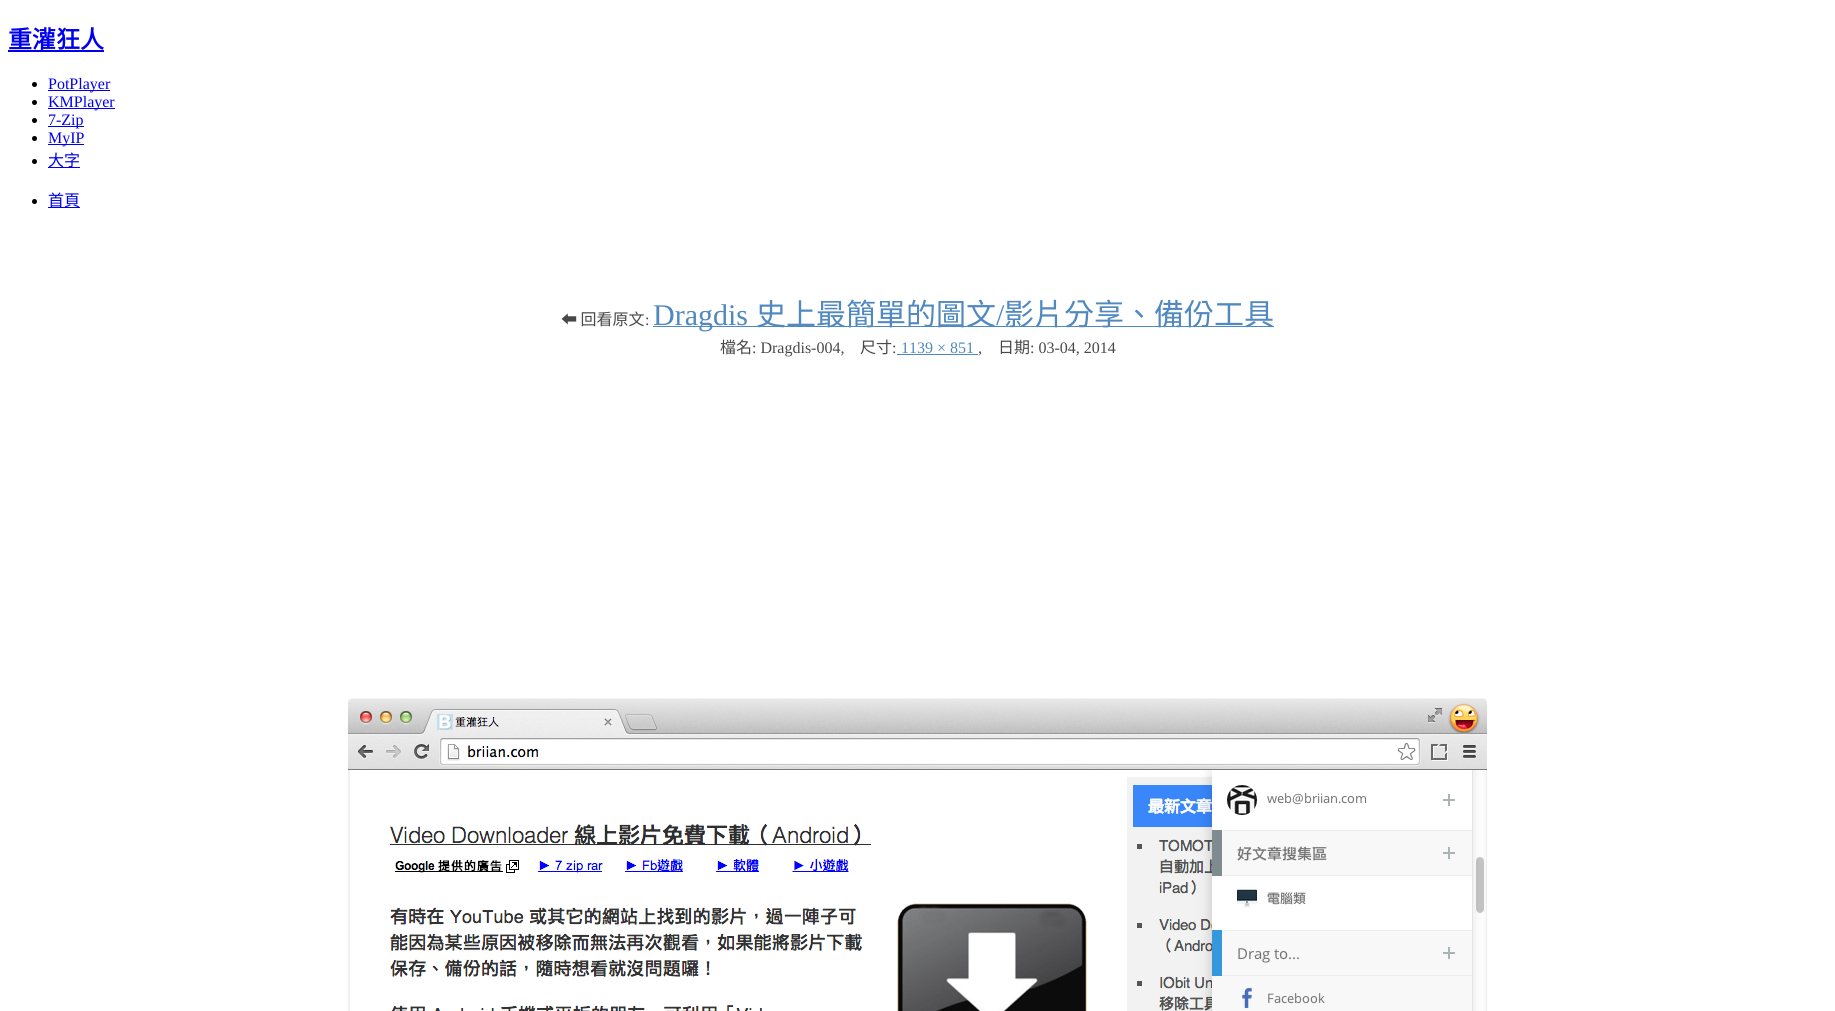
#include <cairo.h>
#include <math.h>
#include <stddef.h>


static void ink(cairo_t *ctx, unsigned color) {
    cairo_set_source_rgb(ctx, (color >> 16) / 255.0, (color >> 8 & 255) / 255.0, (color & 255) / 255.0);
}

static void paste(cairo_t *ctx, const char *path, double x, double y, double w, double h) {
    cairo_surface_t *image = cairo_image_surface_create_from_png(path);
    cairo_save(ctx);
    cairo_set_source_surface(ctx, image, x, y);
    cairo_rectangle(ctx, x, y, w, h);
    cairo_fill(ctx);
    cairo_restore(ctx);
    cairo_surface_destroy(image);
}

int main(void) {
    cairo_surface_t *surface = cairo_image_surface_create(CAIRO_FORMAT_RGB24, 1835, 1011);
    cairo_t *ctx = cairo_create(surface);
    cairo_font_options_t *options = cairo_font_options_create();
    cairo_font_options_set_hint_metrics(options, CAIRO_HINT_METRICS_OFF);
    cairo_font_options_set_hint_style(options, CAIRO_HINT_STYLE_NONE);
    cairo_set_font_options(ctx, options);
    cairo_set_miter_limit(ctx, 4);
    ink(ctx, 0xFFFFFF);
    cairo_paint(ctx);
    cairo_select_font_face(ctx, "Noto Sans CJK TC", CAIRO_FONT_SLANT_NORMAL, CAIRO_FONT_WEIGHT_BOLD);
    cairo_set_font_size(ctx, 24);
    ink(ctx, 0x0000EE);
    cairo_move_to(ctx, 8, 48);
    cairo_show_text(ctx, "重灌狂人");
    cairo_rectangle(ctx, 8, 50, 96, 2);
    cairo_fill(ctx);
    ink(ctx, 0x000000);
    cairo_arc(ctx, 34.5, 84.5, 2.5, 0, 2 * M_PI);
    cairo_fill(ctx);
    ink(ctx, 0x0000EE);
    cairo_rectangle(ctx, 48, 90, 62, 1);
    cairo_fill(ctx);
    cairo_select_font_face(ctx, "Liberation Serif", CAIRO_FONT_SLANT_NORMAL, CAIRO_FONT_WEIGHT_NORMAL);
    cairo_set_font_size(ctx, 16);
    cairo_move_to(ctx, 48, 89);
    cairo_show_text(ctx, "PotPlayer");
    ink(ctx, 0x000000);
    cairo_new_path(ctx);
    cairo_arc(ctx, 34.5, 102.5, 2.5, 0, 2 * M_PI);
    cairo_fill(ctx);
    ink(ctx, 0x0000EE);
    cairo_rectangle(ctx, 48, 108, 67, 1);
    cairo_fill(ctx);
    cairo_move_to(ctx, 48, 107);
    cairo_show_text(ctx, "KMPlayer");
    ink(ctx, 0x000000);
    cairo_new_path(ctx);
    cairo_arc(ctx, 34.5, 120.5, 2.5, 0, 2 * M_PI);
    cairo_fill(ctx);
    ink(ctx, 0x0000EE);
    cairo_rectangle(ctx, 48, 126, 36, 1);
    cairo_fill(ctx);
    cairo_move_to(ctx, 48, 125);
    cairo_show_text(ctx, "7-Zip");
    ink(ctx, 0x000000);
    cairo_new_path(ctx);
    cairo_arc(ctx, 34.5, 138.5, 2.5, 0, 2 * M_PI);
    cairo_fill(ctx);
    ink(ctx, 0x0000EE);
    cairo_rectangle(ctx, 48, 144, 36, 1);
    cairo_fill(ctx);
    cairo_move_to(ctx, 48, 143);
    cairo_show_text(ctx, "MyIP");
    ink(ctx, 0x000000);
    cairo_new_path(ctx);
    cairo_arc(ctx, 34.5, 161.5, 2.5, 0, 2 * M_PI);
    cairo_fill(ctx);
    ink(ctx, 0x0000EE);
    cairo_rectangle(ctx, 48, 167, 32, 1);
    cairo_fill(ctx);
    cairo_select_font_face(ctx, "Noto Sans CJK TC", CAIRO_FONT_SLANT_NORMAL, CAIRO_FONT_WEIGHT_NORMAL);
    cairo_move_to(ctx, 48, 166);
    cairo_show_text(ctx, "大字");
    ink(ctx, 0x000000);
    cairo_new_path(ctx);
    cairo_arc(ctx, 34.5, 201.5, 2.5, 0, 2 * M_PI);
    cairo_fill(ctx);
    ink(ctx, 0x0000EE);
    cairo_rectangle(ctx, 48, 207, 32, 1);
    cairo_fill(ctx);
    cairo_move_to(ctx, 48, 206);
    cairo_show_text(ctx, "首頁");
    ink(ctx, 0x484848);
    cairo_move_to(ctx, 561, 325);
    cairo_show_text(ctx, "⬅ 回看原文");
    cairo_select_font_face(ctx, "Liberation Serif", CAIRO_FONT_SLANT_NORMAL, CAIRO_FONT_WEIGHT_NORMAL);
    cairo_move_to(ctx, 645, 325);
    cairo_show_text(ctx, ":");
    ink(ctx, 0x5088C0);
    cairo_rectangle(ctx, 653, 326, 621, 1);
    cairo_fill(ctx);
    cairo_set_font_size(ctx, 30);
    cairo_move_to(ctx, 653, 325);
    cairo_show_text(ctx, "Dragdis");
    cairo_select_font_face(ctx, "Noto Sans CJK TC", CAIRO_FONT_SLANT_NORMAL, CAIRO_FONT_WEIGHT_NORMAL);
    cairo_move_to(ctx, 756, 325);
    cairo_show_text(ctx, "史上最簡單的圖文");
    cairo_select_font_face(ctx, "Liberation Serif", CAIRO_FONT_SLANT_NORMAL, CAIRO_FONT_WEIGHT_NORMAL);
    cairo_move_to(ctx, 996, 325);
    cairo_show_text(ctx, "/");
    cairo_select_font_face(ctx, "Noto Sans CJK TC", CAIRO_FONT_SLANT_NORMAL, CAIRO_FONT_WEIGHT_NORMAL);
    cairo_move_to(ctx, 1004, 325);
    cairo_show_text(ctx, "影片分享、備份工具");
    cairo_set_font_size(ctx, 16);
    ink(ctx, 0x484848);
    cairo_move_to(ctx, 720, 353);
    cairo_show_text(ctx, "檔名");
    cairo_select_font_face(ctx, "Liberation Serif", CAIRO_FONT_SLANT_NORMAL, CAIRO_FONT_WEIGHT_NORMAL);
    cairo_move_to(ctx, 752, 353);
    cairo_show_text(ctx, ": Dragdis-004,");
    cairo_select_font_face(ctx, "Noto Sans CJK TC", CAIRO_FONT_SLANT_NORMAL, CAIRO_FONT_WEIGHT_NORMAL);
    cairo_move_to(ctx, 860, 353);
    cairo_show_text(ctx, "尺寸");
    cairo_select_font_face(ctx, "Liberation Serif", CAIRO_FONT_SLANT_NORMAL, CAIRO_FONT_WEIGHT_NORMAL);
    cairo_move_to(ctx, 892, 353);
    cairo_show_text(ctx, ":");
    ink(ctx, 0x5088C0);
    cairo_move_to(ctx, 901, 353);
    cairo_show_text(ctx, "1139 × 851");
    ink(ctx, 0x484848);
    cairo_move_to(ctx, 978, 353);
    cairo_show_text(ctx, ",");
    ink(ctx, 0x5088C0);
    cairo_rectangle(ctx, 897, 354, 81, 1);
    cairo_fill(ctx);
    cairo_select_font_face(ctx, "Noto Sans CJK TC", CAIRO_FONT_SLANT_NORMAL, CAIRO_FONT_WEIGHT_NORMAL);
    ink(ctx, 0x484848);
    cairo_move_to(ctx, 998, 353);
    cairo_show_text(ctx, "日期");
    cairo_select_font_face(ctx, "Liberation Serif", CAIRO_FONT_SLANT_NORMAL, CAIRO_FONT_WEIGHT_NORMAL);
    cairo_move_to(ctx, 1030, 353);
    cairo_show_text(ctx, ": 03-04, 2014");
    paste(ctx, "media/1.png", 348, 698, 1139, 313);
    cairo_surface_write_to_png(surface, "image.png");
    cairo_font_options_destroy(options);
    cairo_destroy(ctx);
    cairo_surface_destroy(surface);
    return 0;
}
